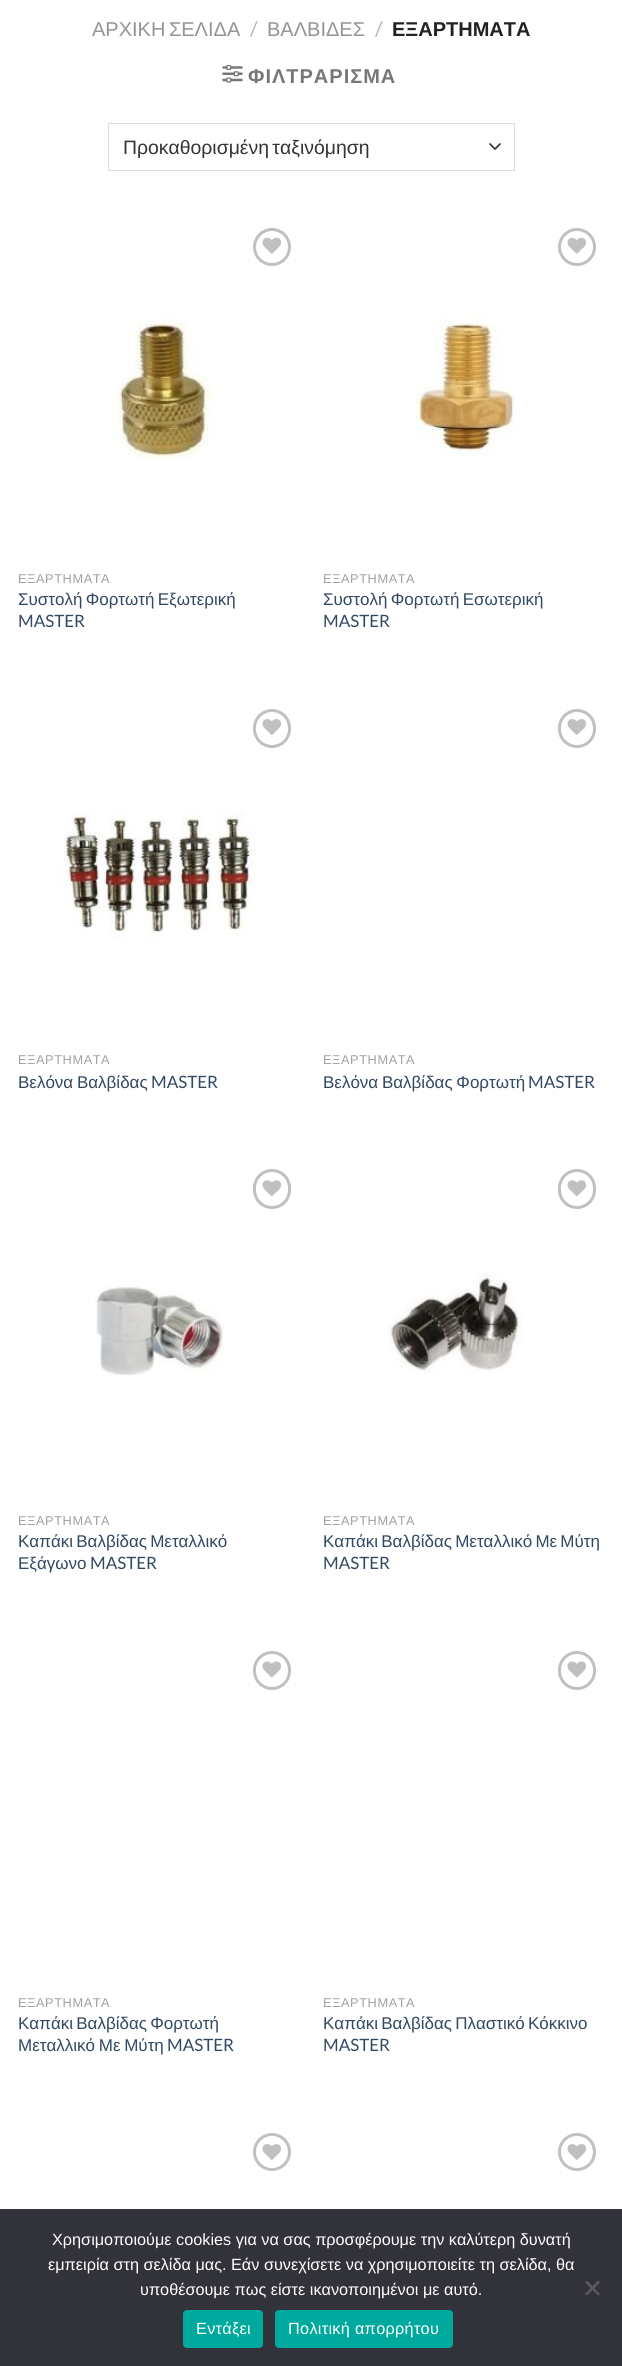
#include <cairo.h>
#include <math.h>
#include <stddef.h>

typedef struct { double x, y; const char *s; } line_t;

static void ink(cairo_t *ctx, unsigned color) {
    cairo_set_source_rgb(ctx, (color >> 16) / 255.0, (color >> 8 & 255) / 255.0, (color & 255) / 255.0);
}

static void write_spaced(cairo_t *ctx, double x, double y, const char *s, double letter, double word) {
    cairo_move_to(ctx, x, y);
    while (*s) {
        char ch[5] = {0};
        int n = 0;
        do ch[n++] = *s++; while ((*s & 0xC0) == 0x80);
        cairo_show_text(ctx, ch);
        cairo_rel_move_to(ctx, letter + word * (*ch == ' '), 0);
    }
}

static void round_path(cairo_t *ctx, double x, double y, double w, double h, double r) {
    cairo_new_sub_path(ctx);
    cairo_arc(ctx, x + w - r, y + h - r, r, 0, M_PI / 2);
    cairo_arc(ctx, x + r, y + h - r, r, M_PI / 2, M_PI);
    cairo_arc(ctx, x + r, y + r, r, M_PI, 1.5 * M_PI);
    cairo_arc(ctx, x + w - r, y + r, r, 1.5 * M_PI, 2 * M_PI);
    cairo_close_path(ctx);
}

static void paste(cairo_t *ctx, const char *path, double x, double y, double w, double h) {
    cairo_surface_t *image = cairo_image_surface_create_from_png(path);
    cairo_save(ctx);
    cairo_set_source_surface(ctx, image, x, y);
    cairo_rectangle(ctx, x, y, w, h);
    cairo_fill(ctx);
    cairo_restore(ctx);
    cairo_surface_destroy(image);
}

int main(void) {
    cairo_surface_t *surface = cairo_image_surface_create(CAIRO_FORMAT_RGB24, 622, 2366);
    cairo_t *ctx = cairo_create(surface);
    cairo_font_options_t *options = cairo_font_options_create();
    cairo_font_options_set_hint_metrics(options, CAIRO_HINT_METRICS_OFF);
    cairo_font_options_set_hint_style(options, CAIRO_HINT_STYLE_NONE);
    cairo_set_font_options(ctx, options);
    cairo_set_miter_limit(ctx, 4);
    ink(ctx, 0xFFFFFF);
    cairo_paint(ctx);
    cairo_select_font_face(ctx, "Liberation Sans", CAIRO_FONT_SLANT_NORMAL, CAIRO_FONT_WEIGHT_NORMAL);
    cairo_set_font_size(ctx, 20);
    ink(ctx, 0x949494);
    write_spaced(ctx, 92, 36, "ΑΡΧΙΚΗ ΣΕΛΙΔΑ", 0, -2);
    cairo_select_font_face(ctx, "Lato", CAIRO_FONT_SLANT_NORMAL, CAIRO_FONT_WEIGHT_NORMAL);
    ink(ctx, 0xB2B2B2);
    cairo_move_to(ctx, 250, 36);
    cairo_show_text(ctx, "/");
    cairo_select_font_face(ctx, "Liberation Sans", CAIRO_FONT_SLANT_NORMAL, CAIRO_FONT_WEIGHT_NORMAL);
    ink(ctx, 0x949494);
    cairo_move_to(ctx, 267, 36);
    cairo_show_text(ctx, "ΒΑΛΒΙΔΕΣ");
    cairo_select_font_face(ctx, "Lato", CAIRO_FONT_SLANT_NORMAL, CAIRO_FONT_WEIGHT_NORMAL);
    ink(ctx, 0xB2B2B2);
    cairo_move_to(ctx, 375, 36);
    cairo_show_text(ctx, "/");
    cairo_select_font_face(ctx, "Liberation Sans", CAIRO_FONT_SLANT_NORMAL, CAIRO_FONT_WEIGHT_BOLD);
    ink(ctx, 0x222222);
    cairo_move_to(ctx, 392, 36);
    cairo_show_text(ctx, "ΕΞΑΡΤΗΜΑΤΑ");
    paste(ctx, "media/1.png", 222, 65, 21, 18);
    ink(ctx, 0x777777);
    write_spaced(ctx, 248, 83, "ΦΙΛΤΡΑΡΙΣΜΑ", 1, 0);
    cairo_new_path(ctx);
    cairo_move_to(ctx, 490, 144);
    cairo_line_to(ctx, 495, 149);
    cairo_line_to(ctx, 500, 144);
    ink(ctx, 0x333333);
    cairo_set_line_width(ctx, 1.7);
    cairo_set_line_cap(ctx, CAIRO_LINE_CAP_ROUND);
    cairo_set_line_join(ctx, CAIRO_LINE_JOIN_ROUND);
    cairo_stroke(ctx);
    cairo_rectangle(ctx, 108.5, 123.5, 406, 47);
    ink(ctx, 0xDDDDDD);
    cairo_set_line_width(ctx, 1);
    cairo_set_line_cap(ctx, CAIRO_LINE_CAP_BUTT);
    cairo_set_line_join(ctx, CAIRO_LINE_JOIN_MITER);
    cairo_stroke(ctx);
    cairo_select_font_face(ctx, "Liberation Sans", CAIRO_FONT_SLANT_NORMAL, CAIRO_FONT_WEIGHT_NORMAL);
    cairo_set_font_size(ctx, 19.4);
    ink(ctx, 0x333333);
    write_spaced(ctx, 123, 154, "Προκαθορισμένη ταξινόμηση", 0, -2);
    cairo_new_path(ctx);
    cairo_arc(ctx, 272, 247, 17.5, 0, 2 * M_PI);
    ink(ctx, 0xC0C0C0);
    cairo_set_line_width(ctx, 3);
    cairo_stroke(ctx);
    paste(ctx, "media/2.png", 262, 237, 20, 17);
    paste(ctx, "media/3.png", 110, 317, 106, 142);
    cairo_set_font_size(ctx, 12.75);
    ink(ctx, 0xA0A0A0);
    write_spaced(ctx, 18, 583, "ΕΞΑΡΤΗΜΑΤΑ", 0.6, 0);
    cairo_set_font_size(ctx, 17);
    ink(ctx, 0x334862);
    write_spaced(ctx, 18, 605, "Συστολή Φορτωτή Εξωτερική", 0, -1.5);
    cairo_select_font_face(ctx, "Lato", CAIRO_FONT_SLANT_NORMAL, CAIRO_FONT_WEIGHT_NORMAL);
    cairo_move_to(ctx, 18, 627);
    cairo_show_text(ctx, "MASTER");
    cairo_new_path(ctx);
    cairo_arc(ctx, 577, 247, 17.5, 0, 2 * M_PI);
    ink(ctx, 0xC0C0C0);
    cairo_stroke(ctx);
    paste(ctx, "media/2.png", 567, 237, 20, 17);
    paste(ctx, "media/4.png", 414, 315, 101, 143);
    cairo_select_font_face(ctx, "Liberation Sans", CAIRO_FONT_SLANT_NORMAL, CAIRO_FONT_WEIGHT_NORMAL);
    cairo_set_font_size(ctx, 12.75);
    ink(ctx, 0xA0A0A0);
    write_spaced(ctx, 323, 583, "ΕΞΑΡΤΗΜΑΤΑ", 0.6, 0);
    cairo_set_font_size(ctx, 17);
    ink(ctx, 0x334862);
    write_spaced(ctx, 323, 605, "Συστολή Φορτωτή Εσωτερική", 0, -1.5);
    cairo_select_font_face(ctx, "Lato", CAIRO_FONT_SLANT_NORMAL, CAIRO_FONT_WEIGHT_NORMAL);
    cairo_move_to(ctx, 323, 627);
    cairo_show_text(ctx, "MASTER");
    round_path(ctx, 254.5, 710.5, 35, 36, 17.5);
    ink(ctx, 0xC0C0C0);
    cairo_stroke(ctx);
    paste(ctx, "media/5.png", 262, 719, 20, 16);
    paste(ctx, "media/6.png", 56, 811, 199, 128);
    cairo_select_font_face(ctx, "Liberation Sans", CAIRO_FONT_SLANT_NORMAL, CAIRO_FONT_WEIGHT_NORMAL);
    cairo_set_font_size(ctx, 12.75);
    ink(ctx, 0xA0A0A0);
    write_spaced(ctx, 18, 1064, "ΕΞΑΡΤΗΜΑΤΑ", 0.6, 0);
    cairo_set_font_size(ctx, 17);
    ink(ctx, 0x334862);
    write_spaced(ctx, 18, 1088, "Βελόνα Βαλβίδας", 0, -1);
    cairo_select_font_face(ctx, "Lato", CAIRO_FONT_SLANT_NORMAL, CAIRO_FONT_WEIGHT_NORMAL);
    cairo_move_to(ctx, 151, 1088);
    cairo_show_text(ctx, "MASTER");
    round_path(ctx, 559.5, 710.5, 35, 36, 17.5);
    ink(ctx, 0xC0C0C0);
    cairo_stroke(ctx);
    paste(ctx, "media/5.png", 567, 719, 20, 16);
    cairo_select_font_face(ctx, "Liberation Sans", CAIRO_FONT_SLANT_NORMAL, CAIRO_FONT_WEIGHT_NORMAL);
    cairo_set_font_size(ctx, 12.75);
    ink(ctx, 0xA0A0A0);
    write_spaced(ctx, 323, 1064, "ΕΞΑΡΤΗΜΑΤΑ", 0.6, 0);
    cairo_set_font_size(ctx, 17);
    ink(ctx, 0x334862);
    write_spaced(ctx, 323, 1088, "Βελόνα Βαλβίδας Φορτωτή", 0, -1);
    cairo_select_font_face(ctx, "Lato", CAIRO_FONT_SLANT_NORMAL, CAIRO_FONT_WEIGHT_NORMAL);
    cairo_move_to(ctx, 528, 1088);
    cairo_show_text(ctx, "MASTER");
    round_path(ctx, 254.5, 1170.5, 35, 37, 17.5);
    ink(ctx, 0xC0C0C0);
    cairo_stroke(ctx);
    paste(ctx, "media/7.png", 262, 1180, 20, 17);
    paste(ctx, "media/8.png", 95, 1286, 130, 90);
    cairo_select_font_face(ctx, "Liberation Sans", CAIRO_FONT_SLANT_NORMAL, CAIRO_FONT_WEIGHT_NORMAL);
    cairo_set_font_size(ctx, 12.75);
    ink(ctx, 0xA0A0A0);
    write_spaced(ctx, 18, 1525, "ΕΞΑΡΤΗΜΑΤΑ", 0.6, 0);
    cairo_set_font_size(ctx, 17);
    ink(ctx, 0x334862);
    write_spaced(ctx, 18, 1547, "Καπάκι Βαλβίδας Μεταλλικό", 0, -1.5);
    cairo_move_to(ctx, 18, 1569);
    cairo_show_text(ctx, "Εξάγωνο");
    cairo_select_font_face(ctx, "Lato", CAIRO_FONT_SLANT_NORMAL, CAIRO_FONT_WEIGHT_NORMAL);
    cairo_move_to(ctx, 90, 1569);
    cairo_show_text(ctx, "MASTER");
    round_path(ctx, 559.5, 1170.5, 35, 37, 17.5);
    ink(ctx, 0xC0C0C0);
    cairo_stroke(ctx);
    paste(ctx, "media/7.png", 567, 1180, 20, 17);
    paste(ctx, "media/9.png", 388, 1272, 135, 100);
    cairo_select_font_face(ctx, "Liberation Sans", CAIRO_FONT_SLANT_NORMAL, CAIRO_FONT_WEIGHT_NORMAL);
    cairo_set_font_size(ctx, 12.75);
    ink(ctx, 0xA0A0A0);
    write_spaced(ctx, 323, 1525, "ΕΞΑΡΤΗΜΑΤΑ", 0.6, 0);
    cairo_set_font_size(ctx, 17);
    ink(ctx, 0x334862);
    write_spaced(ctx, 323, 1547, "Καπάκι Βαλβίδας Μεταλλικό Με Μύτη", 0, -1.5);
    cairo_select_font_face(ctx, "Lato", CAIRO_FONT_SLANT_NORMAL, CAIRO_FONT_WEIGHT_NORMAL);
    cairo_move_to(ctx, 323, 1569);
    cairo_show_text(ctx, "MASTER");
    round_path(ctx, 254.5, 1652.5, 35, 36, 17.5);
    ink(ctx, 0xC0C0C0);
    cairo_stroke(ctx);
    paste(ctx, "media/10.png", 262, 1661, 20, 17);
    cairo_select_font_face(ctx, "Liberation Sans", CAIRO_FONT_SLANT_NORMAL, CAIRO_FONT_WEIGHT_NORMAL);
    cairo_set_font_size(ctx, 12.75);
    ink(ctx, 0xA0A0A0);
    write_spaced(ctx, 18, 2007, "ΕΞΑΡΤΗΜΑΤΑ", 0.6, 0);
    cairo_set_font_size(ctx, 17);
    ink(ctx, 0x334862);
    write_spaced(ctx, 18, 2029, "Καπάκι Βαλβίδας Φορτωτή", 0, -1.5);
    write_spaced(ctx, 18, 2051, "Μεταλλικό Με Μύτη", 0, -1);
    cairo_select_font_face(ctx, "Lato", CAIRO_FONT_SLANT_NORMAL, CAIRO_FONT_WEIGHT_NORMAL);
    cairo_move_to(ctx, 167, 2051);
    cairo_show_text(ctx, "MASTER");
    round_path(ctx, 559.5, 1652.5, 35, 36, 17.5);
    ink(ctx, 0xC0C0C0);
    cairo_stroke(ctx);
    paste(ctx, "media/10.png", 567, 1661, 20, 17);
    cairo_select_font_face(ctx, "Liberation Sans", CAIRO_FONT_SLANT_NORMAL, CAIRO_FONT_WEIGHT_NORMAL);
    cairo_set_font_size(ctx, 12.75);
    ink(ctx, 0xA0A0A0);
    write_spaced(ctx, 323, 2007, "ΕΞΑΡΤΗΜΑΤΑ", 0.6, 0);
    cairo_set_font_size(ctx, 17);
    ink(ctx, 0x334862);
    write_spaced(ctx, 323, 2029, "Καπάκι Βαλβίδας Πλαστικό Κόκκινο", 0, -1.5);
    cairo_select_font_face(ctx, "Lato", CAIRO_FONT_SLANT_NORMAL, CAIRO_FONT_WEIGHT_NORMAL);
    cairo_move_to(ctx, 323, 2051);
    cairo_show_text(ctx, "MASTER");
    cairo_new_path(ctx);
    cairo_arc(ctx, 272, 2152, 17.5, 0, 2 * M_PI);
    ink(ctx, 0xC0C0C0);
    cairo_stroke(ctx);
    paste(ctx, "media/5.png", 262, 2144, 20, 16);
    cairo_arc(ctx, 577, 2152, 17.5, 0, 2 * M_PI);
    cairo_stroke(ctx);
    paste(ctx, "media/5.png", 567, 2144, 20, 16);
    ink(ctx, 0x32323A);
    cairo_rectangle(ctx, 0, 2209, 622, 157);
    cairo_fill(ctx);
    cairo_select_font_face(ctx, "Liberation Sans", CAIRO_FONT_SLANT_NORMAL, CAIRO_FONT_WEIGHT_NORMAL);
    cairo_set_font_size(ctx, 16.25);
    ink(ctx, 0xFFFFFF);
    {
        static const line_t items[] = {
            {52, 2245, "Χρησιμοποιούμε cookies για να σας προσφέρουμε την καλύτερη δυνατή"},
            {48, 2270, "εμπειρία στη σελίδα μας. Εάν συνεχίσετε να χρησιμοποιείτε τη σελίδα, θα"},
            {140, 2295, "υποθέσουμε πως είστε ικανοποιημένοι με αυτό."},
        };
        for (size_t i = 0; i < sizeof items / sizeof *items; i++) {
            cairo_move_to(ctx, items[i].x, items[i].y);
            cairo_show_text(ctx, items[i].s);
        }
    }
    ink(ctx, 0x59595D);
    cairo_new_path(ctx);
    cairo_move_to(ctx, 598, 2280.5);
    cairo_line_to(ctx, 600, 2282.5);
    cairo_line_to(ctx, 587, 2295.5);
    cairo_line_to(ctx, 585, 2294);
    cairo_close_path(ctx);
    cairo_fill(ctx);
    cairo_new_path(ctx);
    cairo_move_to(ctx, 585, 2282.5);
    cairo_line_to(ctx, 587, 2280.5);
    cairo_line_to(ctx, 600, 2294);
    cairo_line_to(ctx, 598, 2295.5);
    cairo_close_path(ctx);
    cairo_fill(ctx);
    ink(ctx, 0x00A99D);
    round_path(ctx, 183, 2310, 80, 38, 4);
    cairo_fill(ctx);
    ink(ctx, 0xFFFFFF);
    write_spaced(ctx, 196, 2334, "Εντάξει", 0.3, 0);
    ink(ctx, 0x00A99D);
    round_path(ctx, 275, 2310, 178, 38, 4);
    cairo_fill(ctx);
    ink(ctx, 0xFFFFFF);
    write_spaced(ctx, 288, 2334, "Πολιτική απορρήτου", 0.3, 0);
    cairo_surface_write_to_png(surface, "image.png");
    cairo_font_options_destroy(options);
    cairo_destroy(ctx);
    cairo_surface_destroy(surface);
    return 0;
}
